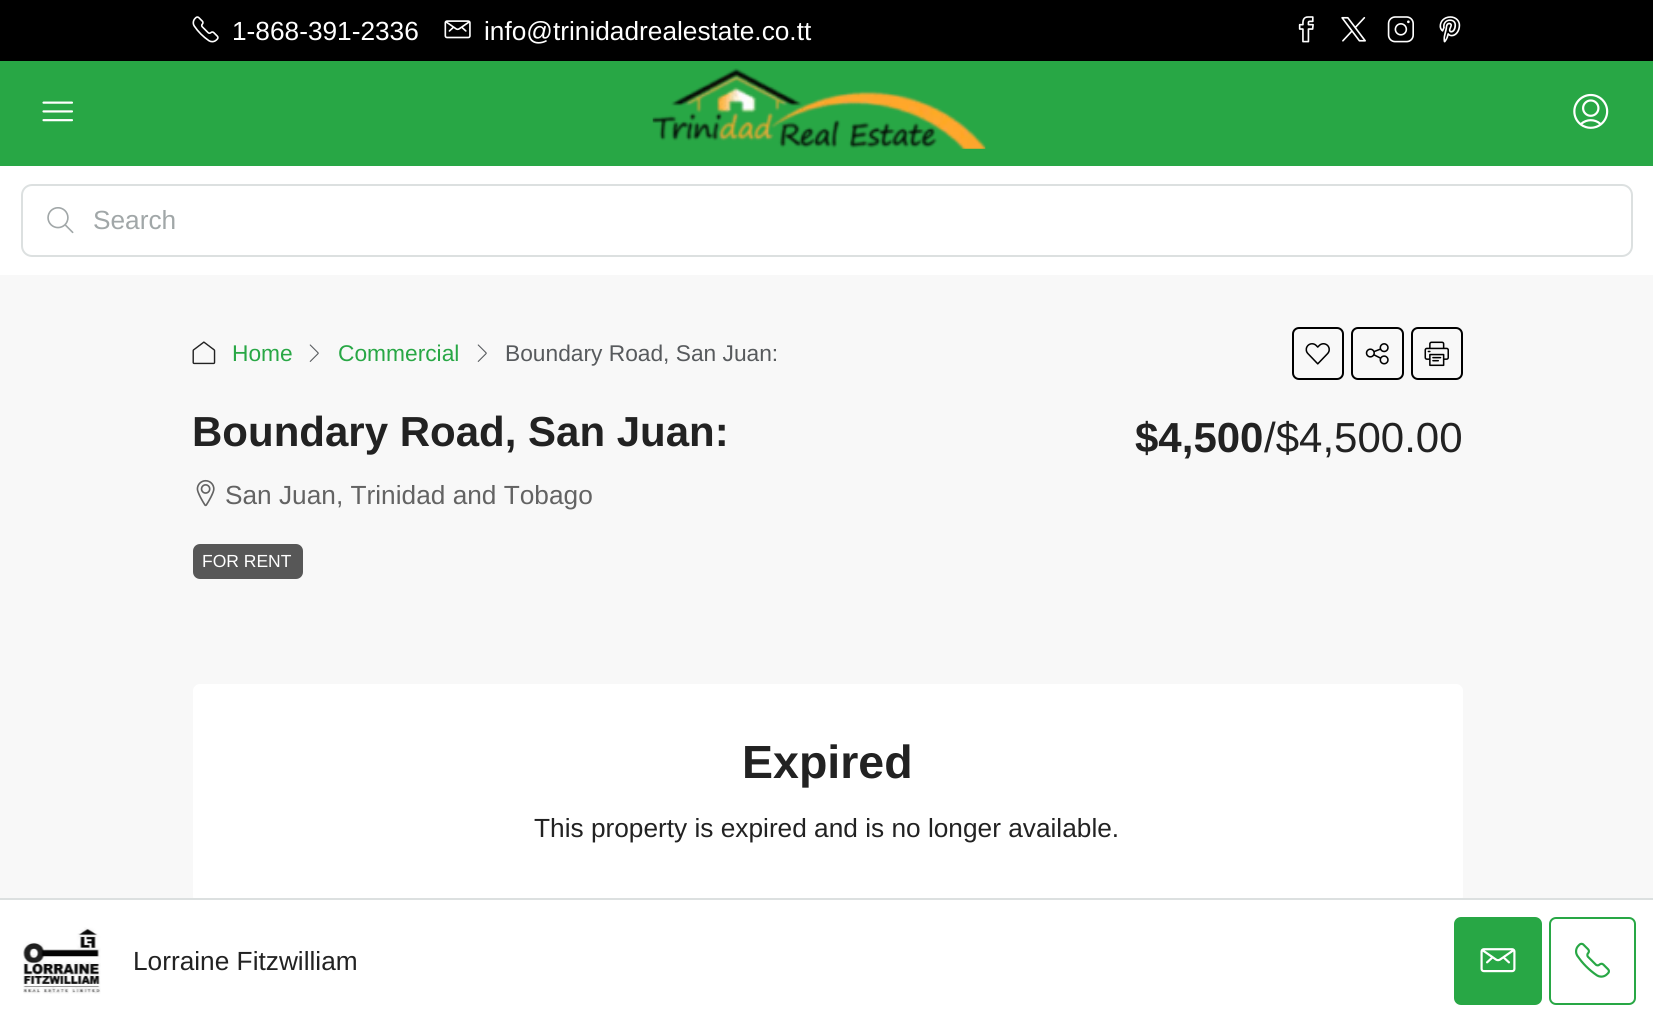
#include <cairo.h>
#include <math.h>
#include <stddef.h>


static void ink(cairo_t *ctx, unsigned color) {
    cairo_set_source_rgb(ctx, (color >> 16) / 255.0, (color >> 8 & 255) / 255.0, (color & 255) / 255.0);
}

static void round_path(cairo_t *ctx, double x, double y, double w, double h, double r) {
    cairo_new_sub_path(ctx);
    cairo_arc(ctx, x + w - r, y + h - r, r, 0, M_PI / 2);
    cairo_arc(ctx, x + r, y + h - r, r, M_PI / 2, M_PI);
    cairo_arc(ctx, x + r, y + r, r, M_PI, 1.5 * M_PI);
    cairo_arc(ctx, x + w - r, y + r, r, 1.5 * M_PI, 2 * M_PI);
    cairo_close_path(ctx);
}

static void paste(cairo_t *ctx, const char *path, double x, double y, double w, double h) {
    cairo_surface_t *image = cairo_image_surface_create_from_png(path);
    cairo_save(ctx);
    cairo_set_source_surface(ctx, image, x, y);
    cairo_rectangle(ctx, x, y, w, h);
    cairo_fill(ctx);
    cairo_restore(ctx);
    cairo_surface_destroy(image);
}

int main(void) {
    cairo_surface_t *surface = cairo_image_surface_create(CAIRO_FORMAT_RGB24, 1653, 1021);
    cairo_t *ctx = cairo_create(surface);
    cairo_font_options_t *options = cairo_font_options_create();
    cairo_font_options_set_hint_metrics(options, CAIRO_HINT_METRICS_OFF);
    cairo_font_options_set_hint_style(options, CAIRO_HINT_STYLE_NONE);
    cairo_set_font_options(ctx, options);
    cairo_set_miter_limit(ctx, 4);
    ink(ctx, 0xF8F8F8);
    cairo_paint(ctx);
    ink(ctx, 0x000000);
    cairo_rectangle(ctx, 0, 0, 1653, 61);
    cairo_fill(ctx);
    paste(ctx, "media/1.png", 192, 16, 27, 27);
    cairo_select_font_face(ctx, "Liberation Sans", CAIRO_FONT_SLANT_NORMAL, CAIRO_FONT_WEIGHT_NORMAL);
    cairo_set_font_size(ctx, 26.25);
    ink(ctx, 0xFFFFFF);
    cairo_move_to(ctx, 232, 40);
    cairo_show_text(ctx, "1-868-391-2336");
    paste(ctx, "media/2.png", 444, 20, 27, 19);
    cairo_move_to(ctx, 484, 40);
    cairo_show_text(ctx, "info@trinidadrealestate.co.tt");
    paste(ctx, "media/3.png", 1298, 16, 16, 27);
    paste(ctx, "media/4.png", 1341, 16, 25, 26);
    paste(ctx, "media/5.png", 1387, 16, 27, 27);
    paste(ctx, "media/6.png", 1439, 16, 22, 27);
    ink(ctx, 0x28A745);
    cairo_rectangle(ctx, 0, 61, 1653, 105);
    cairo_fill(ctx);
    paste(ctx, "media/7.png", 42, 101, 31, 21);
    paste(ctx, "media/8.png", 652, 68, 334, 81);
    paste(ctx, "media/9.png", 1573, 93, 36, 36);
    ink(ctx, 0xFFFFFF);
    cairo_rectangle(ctx, 0, 166, 1653, 109);
    cairo_fill(ctx);
    round_path(ctx, 22, 185, 1610, 71, 10);
    ink(ctx, 0xDCE0E0);
    cairo_stroke(ctx);
    paste(ctx, "media/10.png", 47, 207, 27, 27);
    ink(ctx, 0xA1A7A8);
    cairo_move_to(ctx, 93, 229);
    cairo_show_text(ctx, "Search");
    paste(ctx, "media/11.png", 192, 341, 24, 24);
    cairo_set_font_size(ctx, 22.75);
    ink(ctx, 0x28A745);
    cairo_move_to(ctx, 232, 361);
    cairo_show_text(ctx, "Home");
    paste(ctx, "media/12.png", 309, 344, 10, 18);
    cairo_move_to(ctx, 338, 361);
    cairo_show_text(ctx, "Commercial");
    paste(ctx, "media/12.png", 477, 344, 10, 18);
    ink(ctx, 0x575A5D);
    cairo_move_to(ctx, 505, 361);
    cairo_show_text(ctx, "Boundary Road, San Juan:");
    round_path(ctx, 1293, 328, 50, 51, 6);
    ink(ctx, 0x000000);
    cairo_stroke(ctx);
    paste(ctx, "media/13.png", 1305, 343, 25, 22);
    round_path(ctx, 1352, 328, 51, 51, 6);
    cairo_stroke(ctx);
    paste(ctx, "media/14.png", 1365, 343, 24, 22);
    round_path(ctx, 1412, 328, 50, 51, 6);
    cairo_stroke(ctx);
    paste(ctx, "media/15.png", 1424, 341, 25, 26);
    cairo_select_font_face(ctx, "Liberation Sans", CAIRO_FONT_SLANT_NORMAL, CAIRO_FONT_WEIGHT_BOLD);
    cairo_set_font_size(ctx, 42);
    ink(ctx, 0x222222);
    cairo_move_to(ctx, 192, 446);
    cairo_show_text(ctx, "Boundary Road, San Juan:");
    paste(ctx, "media/16.png", 196, 479, 19, 28);
    cairo_select_font_face(ctx, "Liberation Sans", CAIRO_FONT_SLANT_NORMAL, CAIRO_FONT_WEIGHT_NORMAL);
    cairo_set_font_size(ctx, 26.25);
    ink(ctx, 0x636363);
    cairo_move_to(ctx, 225, 504);
    cairo_show_text(ctx, "San Juan, Trinidad and Tobago");
    ink(ctx, 0x575757);
    round_path(ctx, 193, 544, 110, 35, 7);
    cairo_fill(ctx);
    cairo_set_font_size(ctx, 17.5);
    ink(ctx, 0xFFFFFF);
    cairo_move_to(ctx, 202, 567);
    cairo_show_text(ctx, "FOR RENT");
    cairo_select_font_face(ctx, "Liberation Sans", CAIRO_FONT_SLANT_NORMAL, CAIRO_FONT_WEIGHT_BOLD);
    cairo_set_font_size(ctx, 42);
    ink(ctx, 0x222222);
    cairo_move_to(ctx, 1135, 452);
    cairo_show_text(ctx, "$4,500");
    cairo_select_font_face(ctx, "Liberation Sans", CAIRO_FONT_SLANT_NORMAL, CAIRO_FONT_WEIGHT_NORMAL);
    cairo_move_to(ctx, 1264, 452);
    cairo_show_text(ctx, "/$4,500.00");
    ink(ctx, 0xFFFFFF);
    round_path(ctx, 193, 684, 1270, 219, 7);
    cairo_fill(ctx);
    cairo_select_font_face(ctx, "Liberation Sans", CAIRO_FONT_SLANT_NORMAL, CAIRO_FONT_WEIGHT_BOLD);
    cairo_set_font_size(ctx, 46.5);
    ink(ctx, 0x222222);
    cairo_move_to(ctx, 742, 778);
    cairo_show_text(ctx, "Expired");
    cairo_select_font_face(ctx, "Liberation Sans", CAIRO_FONT_SLANT_NORMAL, CAIRO_FONT_WEIGHT_NORMAL);
    cairo_set_font_size(ctx, 26.25);
    cairo_move_to(ctx, 534, 837);
    cairo_show_text(ctx, "This property is expired and is no longer available.");
    ink(ctx, 0xFFFFFF);
    cairo_rectangle(ctx, 0, 900, 1653, 121);
    cairo_fill(ctx);
    ink(ctx, 0xDCE0E0);
    cairo_rectangle(ctx, 0, 898, 1653, 2);
    cairo_fill(ctx);
    paste(ctx, "media/17.png", 23, 927, 78, 67);
    ink(ctx, 0x222222);
    cairo_move_to(ctx, 133, 970);
    cairo_show_text(ctx, "Lorraine Fitzwilliam");
    ink(ctx, 0x28A745);
    round_path(ctx, 1455, 918, 86, 86, 6);
    cairo_fill_preserve(ctx);
    cairo_stroke(ctx);
    paste(ctx, "media/18.png", 1480, 948, 36, 25);
    round_path(ctx, 1550, 918, 85, 86, 6);
    cairo_stroke(ctx);
    paste(ctx, "media/19.png", 1575, 942, 35, 36);
    cairo_surface_write_to_png(surface, "image.png");
    cairo_font_options_destroy(options);
    cairo_destroy(ctx);
    cairo_surface_destroy(surface);
    return 0;
}
